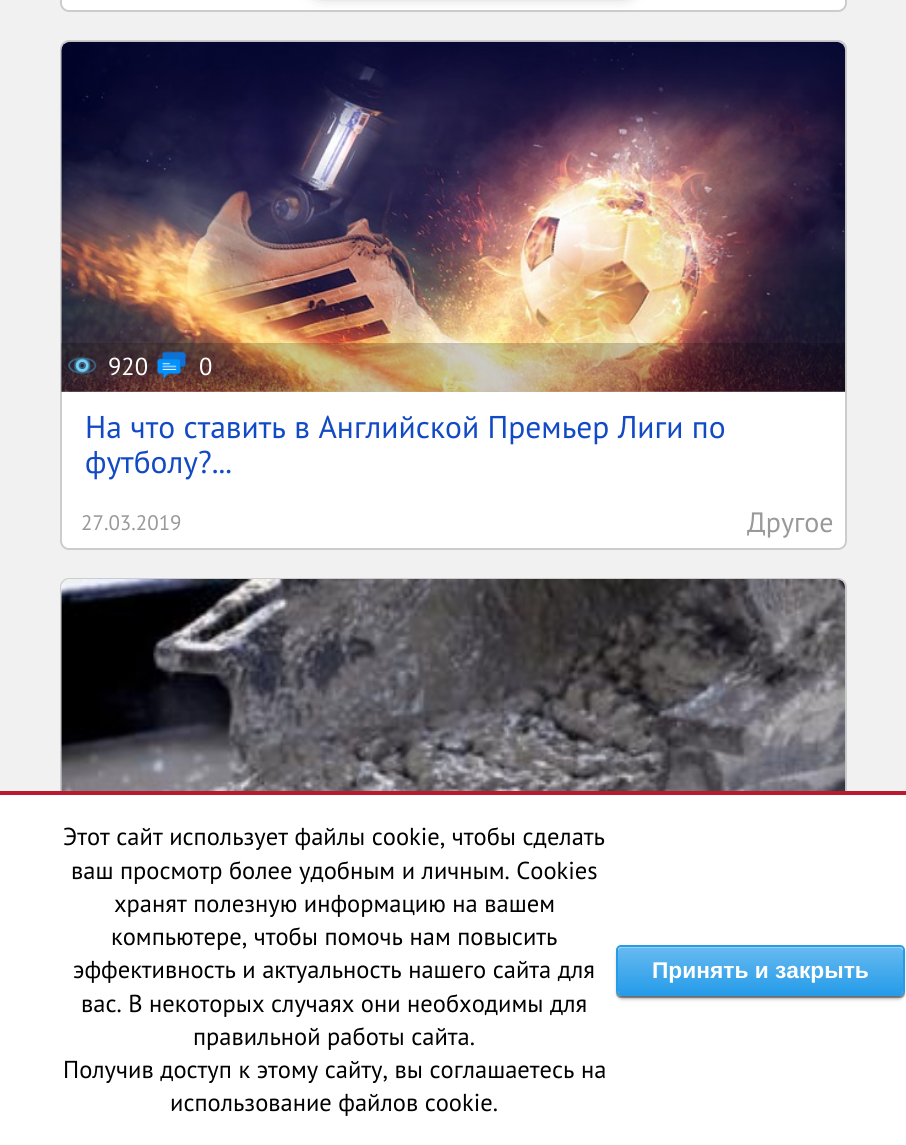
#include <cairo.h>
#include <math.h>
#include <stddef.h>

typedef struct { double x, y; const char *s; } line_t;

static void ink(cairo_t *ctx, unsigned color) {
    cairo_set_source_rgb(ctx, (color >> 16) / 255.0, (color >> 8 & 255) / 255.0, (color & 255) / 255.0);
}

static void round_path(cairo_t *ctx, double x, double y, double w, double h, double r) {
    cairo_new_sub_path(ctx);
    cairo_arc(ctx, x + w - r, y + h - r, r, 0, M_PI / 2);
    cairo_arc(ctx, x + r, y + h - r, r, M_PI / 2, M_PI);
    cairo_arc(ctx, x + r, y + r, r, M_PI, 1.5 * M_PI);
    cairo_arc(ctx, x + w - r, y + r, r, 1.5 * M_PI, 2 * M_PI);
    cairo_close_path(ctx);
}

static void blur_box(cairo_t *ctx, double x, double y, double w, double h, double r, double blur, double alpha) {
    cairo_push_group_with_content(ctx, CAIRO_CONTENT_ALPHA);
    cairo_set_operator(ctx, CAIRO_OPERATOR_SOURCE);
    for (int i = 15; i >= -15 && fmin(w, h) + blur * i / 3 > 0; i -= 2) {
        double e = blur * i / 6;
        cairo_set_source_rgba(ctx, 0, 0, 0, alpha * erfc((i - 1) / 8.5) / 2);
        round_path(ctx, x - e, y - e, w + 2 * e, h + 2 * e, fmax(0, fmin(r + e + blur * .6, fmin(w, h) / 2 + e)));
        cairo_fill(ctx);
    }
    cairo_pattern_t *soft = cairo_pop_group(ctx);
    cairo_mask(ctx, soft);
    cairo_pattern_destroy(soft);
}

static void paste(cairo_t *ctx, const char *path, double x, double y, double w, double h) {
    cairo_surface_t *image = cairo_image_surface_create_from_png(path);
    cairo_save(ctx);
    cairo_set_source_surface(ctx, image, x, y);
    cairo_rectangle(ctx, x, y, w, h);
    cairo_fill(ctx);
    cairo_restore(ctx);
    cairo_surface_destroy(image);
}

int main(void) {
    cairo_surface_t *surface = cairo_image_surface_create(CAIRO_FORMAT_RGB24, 906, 1145);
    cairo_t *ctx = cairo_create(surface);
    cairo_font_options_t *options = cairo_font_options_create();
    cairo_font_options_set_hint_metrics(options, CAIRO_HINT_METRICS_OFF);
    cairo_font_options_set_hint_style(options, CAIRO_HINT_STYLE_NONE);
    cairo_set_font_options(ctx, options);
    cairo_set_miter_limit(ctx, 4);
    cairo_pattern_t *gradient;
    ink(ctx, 0xF1F1F1);
    cairo_paint(ctx);
    ink(ctx, 0xFFFFFF);
    round_path(ctx, 61, -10, 785, 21, 8);
    cairo_fill_preserve(ctx);
    ink(ctx, 0xCCCCCC);
    cairo_stroke(ctx);
    ink(ctx, 0x000000);
    blur_box(ctx, 313, -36, 319, 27, 9, 9, 0.5);
    ink(ctx, 0xFFFFFF);
    round_path(ctx, 61, 41, 785, 508, 8);
    cairo_fill_preserve(ctx);
    ink(ctx, 0xCCCCCC);
    cairo_stroke(ctx);
    ink(ctx, 0xF1F1F1);
    cairo_new_path(ctx);
    cairo_move_to(ctx, 70, 42);
    cairo_line_to(ctx, 836, 42);
    cairo_curve_to(ctx, 841, 42, 845, 46, 845, 51);
    cairo_line_to(ctx, 845, 392);
    cairo_line_to(ctx, 61, 392);
    cairo_line_to(ctx, 61, 51);
    cairo_curve_to(ctx, 61, 46, 65, 42, 70, 42);
    cairo_close_path(ctx);
    cairo_fill(ctx);
    paste(ctx, "media/1.png", 61, 41, 785, 351);
    cairo_set_source_rgba(ctx, 0, 0, 0, 0.2);
    cairo_rectangle(ctx, 61, 343, 784, 49);
    cairo_fill(ctx);
    paste(ctx, "media/2.png", 68, 356, 29, 19);
    cairo_select_font_face(ctx, "PT Sans", CAIRO_FONT_SLANT_NORMAL, CAIRO_FONT_WEIGHT_NORMAL);
    cairo_set_font_size(ctx, 24.5);
    ink(ctx, 0xFFFFFF);
    cairo_move_to(ctx, 108, 375);
    cairo_show_text(ctx, "920");
    paste(ctx, "media/3.png", 157, 351, 29, 29);
    cairo_move_to(ctx, 199, 375);
    cairo_show_text(ctx, "0");
    cairo_set_font_size(ctx, 31.5);
    ink(ctx, 0x114AC4);
    cairo_move_to(ctx, 85, 438);
    cairo_show_text(ctx, "На что ставить в Английской Премьер Лиги по");
    cairo_move_to(ctx, 85, 473);
    cairo_show_text(ctx, "футболу?...");
    cairo_set_font_size(ctx, 21);
    ink(ctx, 0x999999);
    cairo_move_to(ctx, 81, 530);
    cairo_show_text(ctx, "27.03.2019");
    cairo_set_font_size(ctx, 28);
    cairo_move_to(ctx, 747, 532);
    cairo_show_text(ctx, "Другое");
    round_path(ctx, 61, 579, 785, 507, 8);
    ink(ctx, 0xCCCCCC);
    cairo_stroke(ctx);
    ink(ctx, 0xF1F1F1);
    cairo_new_path(ctx);
    cairo_move_to(ctx, 70, 579);
    cairo_line_to(ctx, 836, 579);
    cairo_curve_to(ctx, 841, 579, 845, 583, 845, 588);
    cairo_line_to(ctx, 845, 929);
    cairo_line_to(ctx, 61, 929);
    cairo_line_to(ctx, 61, 588);
    cairo_curve_to(ctx, 61, 583, 65, 579, 70, 579);
    cairo_close_path(ctx);
    cairo_fill(ctx);
    paste(ctx, "media/4.png", 61, 579, 785, 212);
    ink(ctx, 0xFFFFFF);
    cairo_rectangle(ctx, 0, 795, 906, 350);
    cairo_fill(ctx);
    ink(ctx, 0xB81B2E);
    cairo_rectangle(ctx, 0, 791, 906, 4);
    cairo_fill(ctx);
    cairo_set_font_size(ctx, 24.5);
    ink(ctx, 0x000000);
    {
        static const line_t items[] = {
            {63, 845, "Этот сайт использует файлы cookie, чтобы сделать"},
            {71, 879, "ваш просмотр более удобным и личным. Cookies"},
            {114, 912, "хранят полезную информацию на вашем"},
            {111, 945, "компьютере, чтобы помочь нам повысить"},
            {73, 978, "эффективность и актуальность нашего сайта для"},
            {81, 1012, "вас. В некоторых случаях они необходимы для"},
            {193, 1045, "правильной работы сайта."},
            {63, 1078, "Получив доступ к этому сайту, вы соглашаетесь на"},
            {170, 1111, "использование файлов cookie."},
        };
        for (size_t i = 0; i < sizeof items / sizeof *items; i++) {
            cairo_move_to(ctx, items[i].x, items[i].y);
            cairo_show_text(ctx, items[i].s);
        }
    }
    ink(ctx, 0x000000);
    blur_box(ctx, 618, 950, 285, 48, 4, 2, 0.5);
    cairo_set_source_rgba(ctx, 0, 0, 0, 0.3);
    cairo_new_path(ctx);
    cairo_move_to(ctx, 616, 990);
    cairo_line_to(ctx, 616, 993);
    cairo_curve_to(ctx, 616, 996, 618, 998, 621, 998);
    cairo_line_to(ctx, 900, 998);
    cairo_curve_to(ctx, 903, 998, 905, 996, 905, 993);
    cairo_line_to(ctx, 905, 950);
    cairo_line_to(ctx, 905, 990);
    cairo_curve_to(ctx, 905, 993, 902, 996, 900, 996);
    cairo_line_to(ctx, 621, 996);
    cairo_curve_to(ctx, 618, 996, 616, 993, 616, 990);
    cairo_close_path(ctx);
    cairo_fill(ctx);
    ink(ctx, 0x269CE9);
    round_path(ctx, 618, 947, 285, 47, 4);
    cairo_fill(ctx);
    gradient = cairo_pattern_create_linear(760, 947, 760, 994);
    cairo_pattern_add_color_stop_rgba(gradient, 0, 1, 1, 1, 0.3);
    cairo_pattern_add_color_stop_rgba(gradient, 1, 1, 1, 1, 0);
    cairo_set_source(ctx, gradient);
    cairo_pattern_destroy(gradient);
    round_path(ctx, 618, 947, 285, 47, 4);
    cairo_fill(ctx);
    cairo_set_source_rgba(ctx, 1, 1, 1, 0.3);
    cairo_new_path(ctx);
    cairo_move_to(ctx, 621, 948);
    cairo_line_to(ctx, 900, 948);
    cairo_curve_to(ctx, 901, 948, 903, 950, 903, 952);
    cairo_curve_to(ctx, 903, 949, 902, 947, 899, 947);
    cairo_line_to(ctx, 622, 947);
    cairo_curve_to(ctx, 619, 947, 618, 949, 618, 952);
    cairo_curve_to(ctx, 618, 950, 619, 948, 621, 948);
    cairo_close_path(ctx);
    cairo_fill(ctx);
    round_path(ctx, 617, 946, 287, 49, 4);
    ink(ctx, 0x269CE9);
    cairo_stroke(ctx);
    cairo_select_font_face(ctx, "Liberation Sans", CAIRO_FONT_SLANT_NORMAL, CAIRO_FONT_WEIGHT_BOLD);
    cairo_set_font_size(ctx, 22.75);
    ink(ctx, 0xFFFFFF);
    cairo_move_to(ctx, 652, 978);
    cairo_show_text(ctx, "Принять и закрыть");
    cairo_surface_write_to_png(surface, "image.png");
    cairo_font_options_destroy(options);
    cairo_destroy(ctx);
    cairo_surface_destroy(surface);
    return 0;
}
